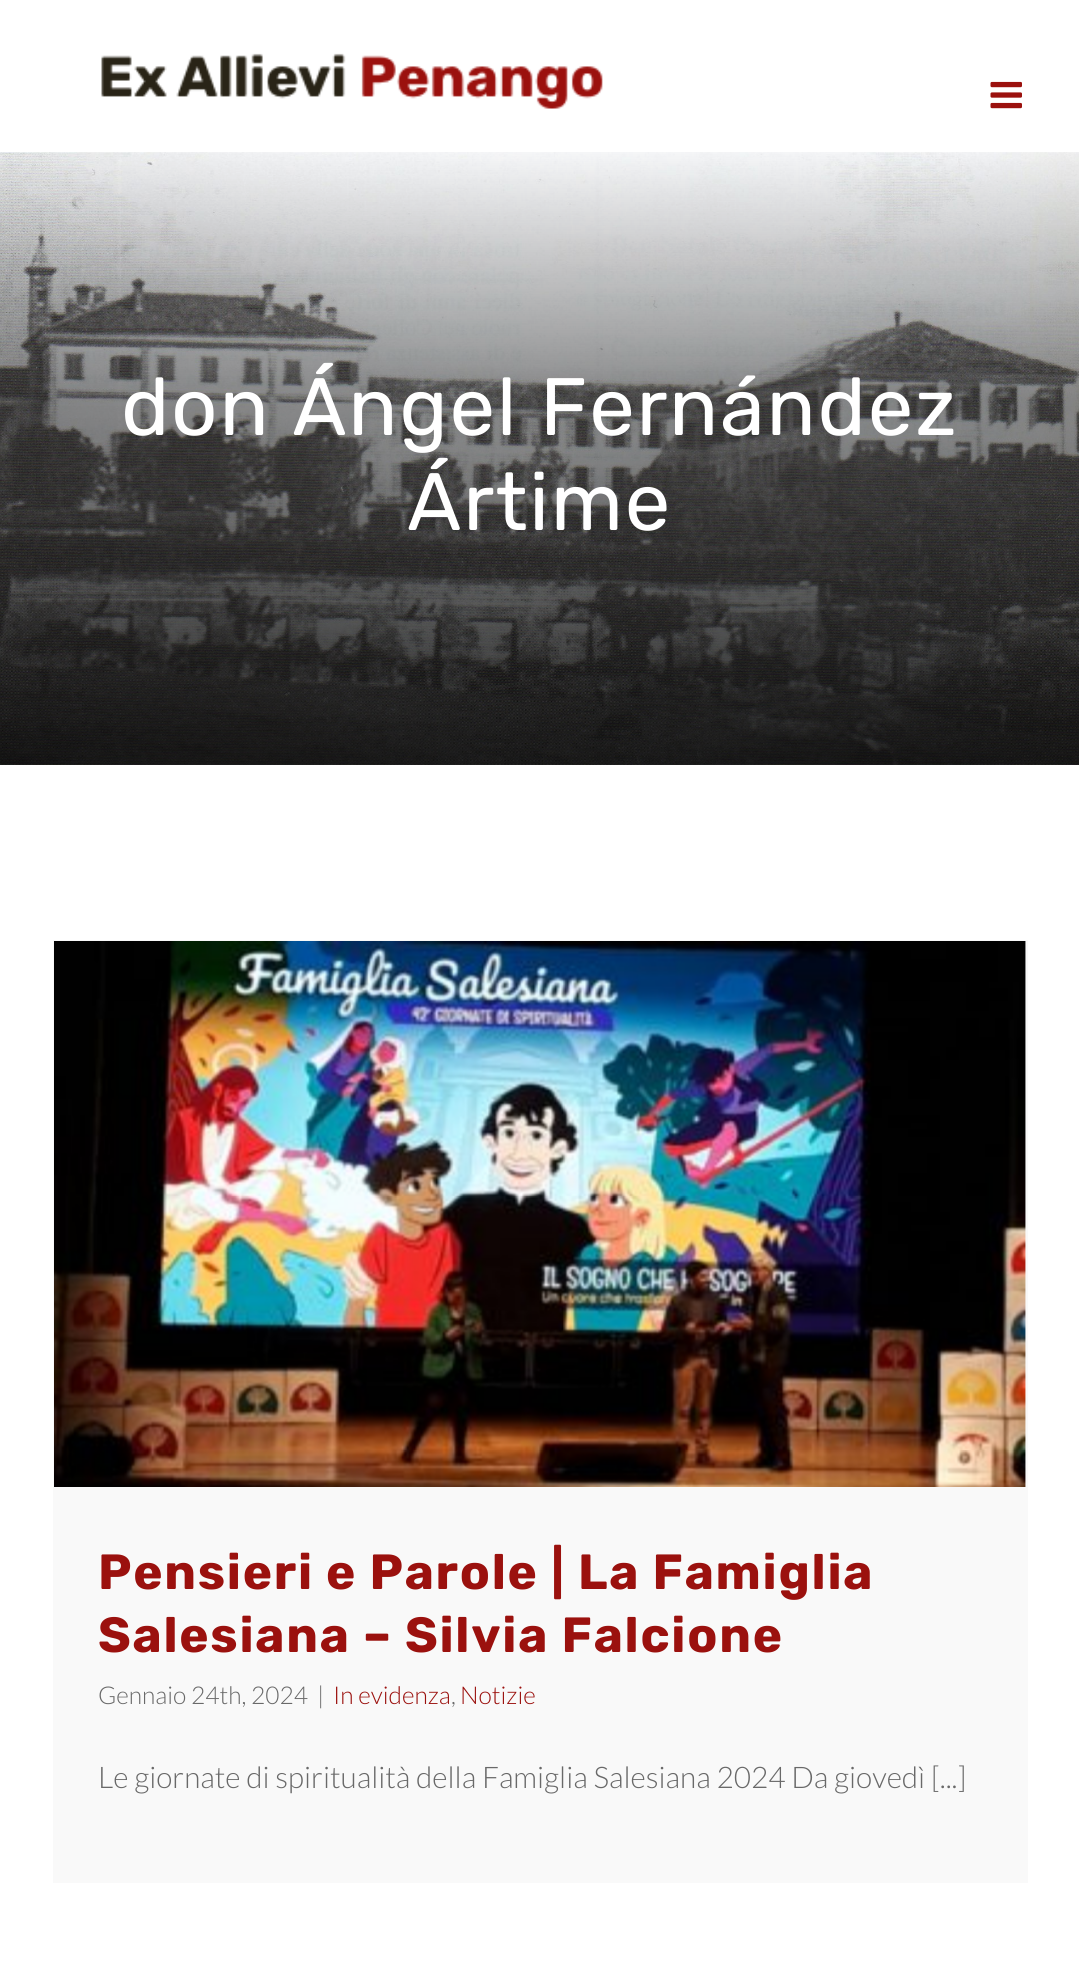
#include <cairo.h>
#include <math.h>
#include <stddef.h>

typedef struct { double x, y, w, h; unsigned color; } box_t;

static void ink(cairo_t *ctx, unsigned color) {
    cairo_set_source_rgb(ctx, (color >> 16) / 255.0, (color >> 8 & 255) / 255.0, (color & 255) / 255.0);
}

static void write_spaced(cairo_t *ctx, double x, double y, const char *s, double letter, double word) {
    cairo_move_to(ctx, x, y);
    while (*s) {
        char ch[5] = {0};
        int n = 0;
        do ch[n++] = *s++; while ((*s & 0xC0) == 0x80);
        cairo_show_text(ctx, ch);
        cairo_rel_move_to(ctx, letter + word * (*ch == ' '), 0);
    }
}

static void paste(cairo_t *ctx, const char *path, double x, double y, double w, double h) {
    cairo_surface_t *image = cairo_image_surface_create_from_png(path);
    cairo_save(ctx);
    cairo_set_source_surface(ctx, image, x, y);
    cairo_rectangle(ctx, x, y, w, h);
    cairo_fill(ctx);
    cairo_restore(ctx);
    cairo_surface_destroy(image);
}

int main(void) {
    cairo_surface_t *surface = cairo_image_surface_create(CAIRO_FORMAT_RGB24, 1079, 1988);
    cairo_t *ctx = cairo_create(surface);
    cairo_font_options_t *options = cairo_font_options_create();
    cairo_font_options_set_hint_metrics(options, CAIRO_HINT_METRICS_OFF);
    cairo_font_options_set_hint_style(options, CAIRO_HINT_STYLE_NONE);
    cairo_set_font_options(ctx, options);
    cairo_set_miter_limit(ctx, 4);
    cairo_pattern_t *gradient;
    ink(ctx, 0xFFFFFF);
    cairo_paint(ctx);
    paste(ctx, "media/1.png", 101, 53, 502, 56);
    paste(ctx, "media/2.png", 990, 81, 32, 28);
    paste(ctx, "media/3.png", 0, 152, 1079, 613);
    gradient = cairo_pattern_create_linear(540, 765, 540, 152);
    cairo_pattern_add_color_stop_rgba(gradient, 0, 0, 0, 0, 0.82);
    cairo_pattern_add_color_stop_rgba(gradient, 0.5, 0, 0, 0, 0.47);
    cairo_pattern_add_color_stop_rgba(gradient, 0.6, 0, 0, 0, 0.45);
    cairo_pattern_add_color_stop_rgba(gradient, 1, 0, 0, 0, 0.03);
    cairo_set_source(ctx, gradient);
    cairo_pattern_destroy(gradient);
    cairo_rectangle(ctx, 0, 152, 1079, 613);
    cairo_fill(ctx);
    cairo_select_font_face(ctx, "Rubik", CAIRO_FONT_SLANT_NORMAL, CAIRO_FONT_WEIGHT_NORMAL);
    cairo_set_font_size(ctx, 81.25);
    ink(ctx, 0xFFFFFF);
    write_spaced(ctx, 121, 435, "don Ángel Fernández", 1.75, 0);
    write_spaced(ctx, 407, 530, "Ártime", 1.75, 0);
    {
        static const box_t items[] = {
            {55, 942, 971, 936, 0xF9F9F9},
            {53, 940, 974, 2, 0xF9F9F9},
            {1026, 940, 2, 943, 0xF9F9F9},
            {53, 1878, 974, 5, 0xF9F9F9},
            {53, 940, 2, 943, 0xF9F9F9},
        };
        for (size_t i = 0; i < sizeof items / sizeof *items; i++) {
            ink(ctx, items[i].color);
            cairo_rectangle(ctx, items[i].x, items[i].y, items[i].w, items[i].h);
            cairo_fill(ctx);
        }
    }
    paste(ctx, "media/4.png", 54, 941, 972, 546);
    cairo_select_font_face(ctx, "Rubik", CAIRO_FONT_SLANT_NORMAL, CAIRO_FONT_WEIGHT_BOLD);
    cairo_set_font_size(ctx, 49.4);
    ink(ctx, 0x9B110E);
    write_spaced(ctx, 98, 1589, "Pensieri e Parole | La Famiglia", 1.75, 0);
    write_spaced(ctx, 98, 1652, "Salesiana – Silvia Falcione", 1.75, 0);
    cairo_select_font_face(ctx, "Lato Light", CAIRO_FONT_SLANT_NORMAL, CAIRO_FONT_WEIGHT_NORMAL);
    cairo_set_font_size(ctx, 24.5);
    ink(ctx, 0x696969);
    cairo_move_to(ctx, 98, 1704);
    cairo_show_text(ctx, "Gennaio 24th, 2024");
    cairo_move_to(ctx, 317, 1704);
    cairo_show_text(ctx, "|");
    ink(ctx, 0x9B110E);
    cairo_move_to(ctx, 333, 1704);
    cairo_show_text(ctx, "In evidenza");
    ink(ctx, 0x696969);
    cairo_move_to(ctx, 451, 1704);
    cairo_show_text(ctx, ",");
    ink(ctx, 0x9B110E);
    cairo_move_to(ctx, 460, 1704);
    cairo_show_text(ctx, "Notizie");
    cairo_set_font_size(ctx, 29.75);
    ink(ctx, 0x696969);
    cairo_move_to(ctx, 98, 1788);
    cairo_show_text(ctx, "Le giornate di spiritualità della Famiglia Salesiana 2024 Da giovedì [...]");
    cairo_surface_write_to_png(surface, "image.png");
    cairo_font_options_destroy(options);
    cairo_destroy(ctx);
    cairo_surface_destroy(surface);
    return 0;
}
